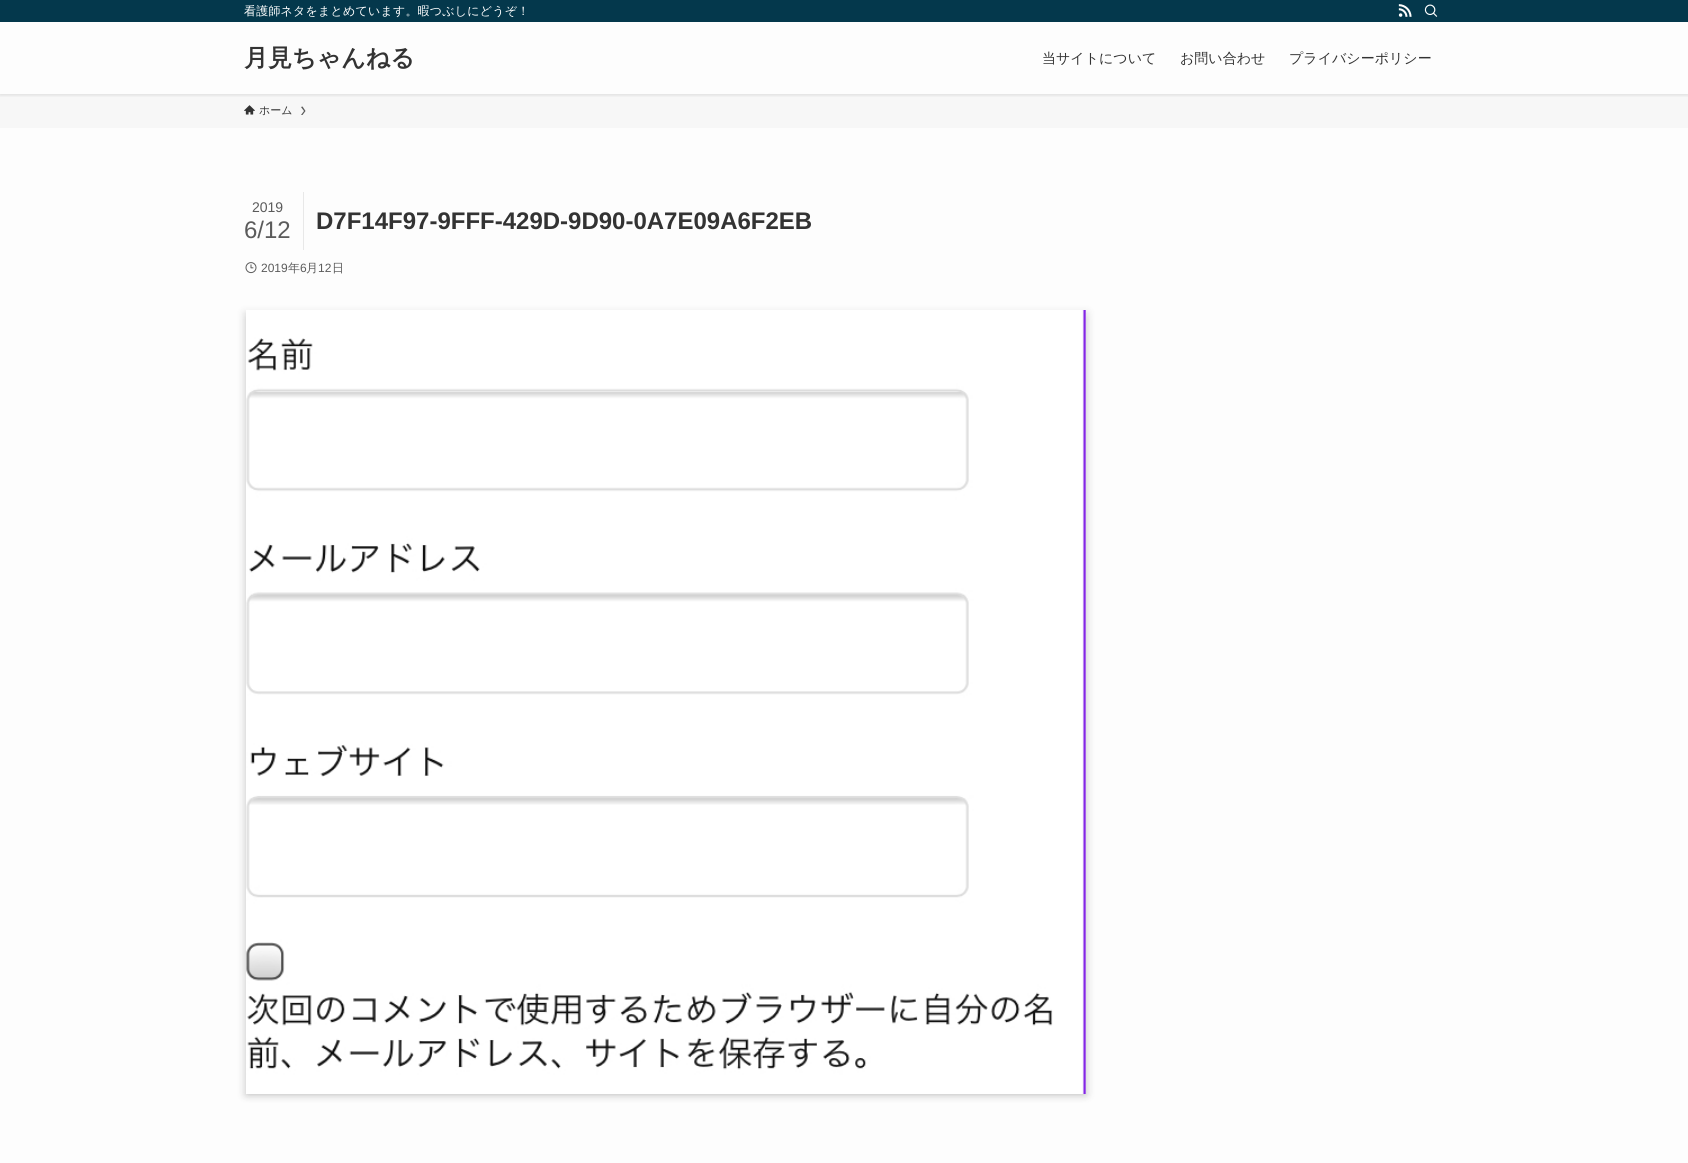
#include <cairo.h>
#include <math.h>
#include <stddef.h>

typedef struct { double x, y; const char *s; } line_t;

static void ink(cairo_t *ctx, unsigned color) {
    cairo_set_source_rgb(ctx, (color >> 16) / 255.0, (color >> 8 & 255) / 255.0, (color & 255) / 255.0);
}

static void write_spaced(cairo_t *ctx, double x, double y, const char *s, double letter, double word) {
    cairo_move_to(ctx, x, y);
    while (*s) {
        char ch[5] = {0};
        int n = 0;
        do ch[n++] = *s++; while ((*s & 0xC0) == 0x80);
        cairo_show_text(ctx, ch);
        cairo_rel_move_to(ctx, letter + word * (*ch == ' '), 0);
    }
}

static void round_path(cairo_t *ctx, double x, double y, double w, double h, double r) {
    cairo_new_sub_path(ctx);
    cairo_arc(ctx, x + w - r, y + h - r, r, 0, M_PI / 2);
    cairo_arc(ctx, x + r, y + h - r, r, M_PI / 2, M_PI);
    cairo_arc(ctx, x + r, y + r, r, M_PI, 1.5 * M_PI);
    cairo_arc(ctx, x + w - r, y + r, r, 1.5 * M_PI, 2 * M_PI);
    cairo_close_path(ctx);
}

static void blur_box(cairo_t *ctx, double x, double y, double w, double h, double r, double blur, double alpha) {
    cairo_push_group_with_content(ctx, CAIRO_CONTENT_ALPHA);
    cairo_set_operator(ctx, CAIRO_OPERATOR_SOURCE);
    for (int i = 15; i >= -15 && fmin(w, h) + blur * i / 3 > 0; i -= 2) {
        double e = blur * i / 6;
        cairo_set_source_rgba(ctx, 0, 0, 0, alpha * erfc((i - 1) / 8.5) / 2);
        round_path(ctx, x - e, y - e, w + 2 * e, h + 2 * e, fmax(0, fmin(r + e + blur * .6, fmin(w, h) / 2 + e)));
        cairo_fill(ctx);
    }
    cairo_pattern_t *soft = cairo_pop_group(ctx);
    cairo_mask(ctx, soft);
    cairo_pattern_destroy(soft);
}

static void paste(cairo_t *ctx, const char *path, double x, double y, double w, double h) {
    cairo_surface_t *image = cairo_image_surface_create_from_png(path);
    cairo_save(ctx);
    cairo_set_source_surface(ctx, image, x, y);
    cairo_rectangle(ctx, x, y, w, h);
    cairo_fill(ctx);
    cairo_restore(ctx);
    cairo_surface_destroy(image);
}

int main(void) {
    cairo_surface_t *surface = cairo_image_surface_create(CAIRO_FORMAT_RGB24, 1688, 1163);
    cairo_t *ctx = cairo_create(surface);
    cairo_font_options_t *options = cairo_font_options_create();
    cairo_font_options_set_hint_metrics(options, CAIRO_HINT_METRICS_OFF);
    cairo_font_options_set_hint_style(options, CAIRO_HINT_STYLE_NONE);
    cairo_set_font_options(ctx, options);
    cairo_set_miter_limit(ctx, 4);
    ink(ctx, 0xFDFDFD);
    cairo_paint(ctx);
    ink(ctx, 0xF7F7F7);
    cairo_rectangle(ctx, 0, 94, 1688, 34);
    cairo_fill(ctx);
    cairo_save(ctx);
    cairo_rectangle(ctx, 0, 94, 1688, 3);
    cairo_clip(ctx);
    ink(ctx, 0x000000);
    blur_box(ctx, 0, 1, 1688, 94, 0, 2, 0.12);
    cairo_restore(ctx);
    ink(ctx, 0x04384C);
    cairo_rectangle(ctx, 0, 0, 1688, 22);
    cairo_fill(ctx);
    cairo_select_font_face(ctx, "WenQuanYi Zen Hei Medium", CAIRO_FONT_SLANT_NORMAL, CAIRO_FONT_WEIGHT_NORMAL);
    cairo_set_font_size(ctx, 12);
    ink(ctx, 0xFFFFFF);
    write_spaced(ctx, 244, 15, "看護師ネタをまとめています。暇つぶしにどうぞ！", 0.2, 0);
    paste(ctx, "media/1.png", 1398, 4, 14, 13);
    paste(ctx, "media/2.png", 1424, 4, 14, 13);
    cairo_select_font_face(ctx, "WenQuanYi Zen Hei", CAIRO_FONT_SLANT_NORMAL, CAIRO_FONT_WEIGHT_BOLD);
    cairo_set_font_size(ctx, 24);
    ink(ctx, 0x333333);
    cairo_move_to(ctx, 244, 66);
    cairo_show_text(ctx, "月見ちゃんねる");
    cairo_select_font_face(ctx, "WenQuanYi Zen Hei Medium", CAIRO_FONT_SLANT_NORMAL, CAIRO_FONT_WEIGHT_NORMAL);
    cairo_set_font_size(ctx, 14);
    {
        static const line_t items[] = {
            {1042, 63, "当サイトについて"},
            {1180, 63, "お問い合わせ"},
            {1289, 63, "プライバシーポリシー"},
        };
        for (size_t i = 0; i < sizeof items / sizeof *items; i++) {
            cairo_move_to(ctx, items[i].x, items[i].y);
            cairo_show_text(ctx, items[i].s);
        }
    }
    paste(ctx, "media/3.png", 244, 105, 11, 10);
    cairo_set_font_size(ctx, 11);
    cairo_move_to(ctx, 259, 114);
    cairo_show_text(ctx, "ホーム");
    ink(ctx, 0x5A5A5A);
    cairo_new_path(ctx);
    cairo_move_to(ctx, 302.5, 106.5);
    cairo_line_to(ctx, 301, 107);
    cairo_line_to(ctx, 304, 111);
    cairo_line_to(ctx, 301, 115);
    cairo_line_to(ctx, 302.5, 115);
    cairo_line_to(ctx, 305.5, 111);
    cairo_close_path(ctx);
    cairo_fill(ctx);
    ink(ctx, 0xE8E8E8);
    cairo_rectangle(ctx, 303, 192, 1, 58);
    cairo_fill(ctx);
    cairo_select_font_face(ctx, "Liberation Sans", CAIRO_FONT_SLANT_NORMAL, CAIRO_FONT_WEIGHT_NORMAL);
    cairo_set_font_size(ctx, 14);
    ink(ctx, 0x5B5B5B);
    cairo_move_to(ctx, 252, 212);
    cairo_show_text(ctx, "2019");
    cairo_set_font_size(ctx, 24);
    cairo_move_to(ctx, 244, 238);
    cairo_show_text(ctx, "6/12");
    cairo_select_font_face(ctx, "Liberation Sans", CAIRO_FONT_SLANT_NORMAL, CAIRO_FONT_WEIGHT_BOLD);
    ink(ctx, 0x333333);
    cairo_move_to(ctx, 316, 229);
    cairo_show_text(ctx, "D7F14F97-9FFF-429D-9D90-0A7E09A6F2EB");
    paste(ctx, "media/4.png", 245, 262, 12, 12);
    cairo_select_font_face(ctx, "Liberation Sans", CAIRO_FONT_SLANT_NORMAL, CAIRO_FONT_WEIGHT_NORMAL);
    cairo_set_font_size(ctx, 12);
    ink(ctx, 0x5B5B5B);
    cairo_move_to(ctx, 261, 272);
    cairo_show_text(ctx, "2019");
    cairo_select_font_face(ctx, "WenQuanYi Zen Hei Medium", CAIRO_FONT_SLANT_NORMAL, CAIRO_FONT_WEIGHT_NORMAL);
    cairo_move_to(ctx, 288, 272);
    cairo_show_text(ctx, "年");
    cairo_select_font_face(ctx, "Liberation Sans", CAIRO_FONT_SLANT_NORMAL, CAIRO_FONT_WEIGHT_NORMAL);
    cairo_move_to(ctx, 300, 272);
    cairo_show_text(ctx, "6");
    cairo_select_font_face(ctx, "WenQuanYi Zen Hei Medium", CAIRO_FONT_SLANT_NORMAL, CAIRO_FONT_WEIGHT_NORMAL);
    cairo_move_to(ctx, 306, 272);
    cairo_show_text(ctx, "月");
    cairo_select_font_face(ctx, "Liberation Sans", CAIRO_FONT_SLANT_NORMAL, CAIRO_FONT_WEIGHT_NORMAL);
    cairo_move_to(ctx, 318, 272);
    cairo_show_text(ctx, "12");
    cairo_select_font_face(ctx, "WenQuanYi Zen Hei Medium", CAIRO_FONT_SLANT_NORMAL, CAIRO_FONT_WEIGHT_NORMAL);
    cairo_move_to(ctx, 332, 272);
    cairo_show_text(ctx, "日");
    ink(ctx, 0x000000);
    blur_box(ctx, 248, 318, 836, 776, 0, 4, 0.2);
    blur_box(ctx, 244, 312, 844, 784, 0, 4, 0.1);
    paste(ctx, "media/5.png", 246, 310, 840, 784);
    cairo_surface_write_to_png(surface, "image.png");
    cairo_font_options_destroy(options);
    cairo_destroy(ctx);
    cairo_surface_destroy(surface);
    return 0;
}
